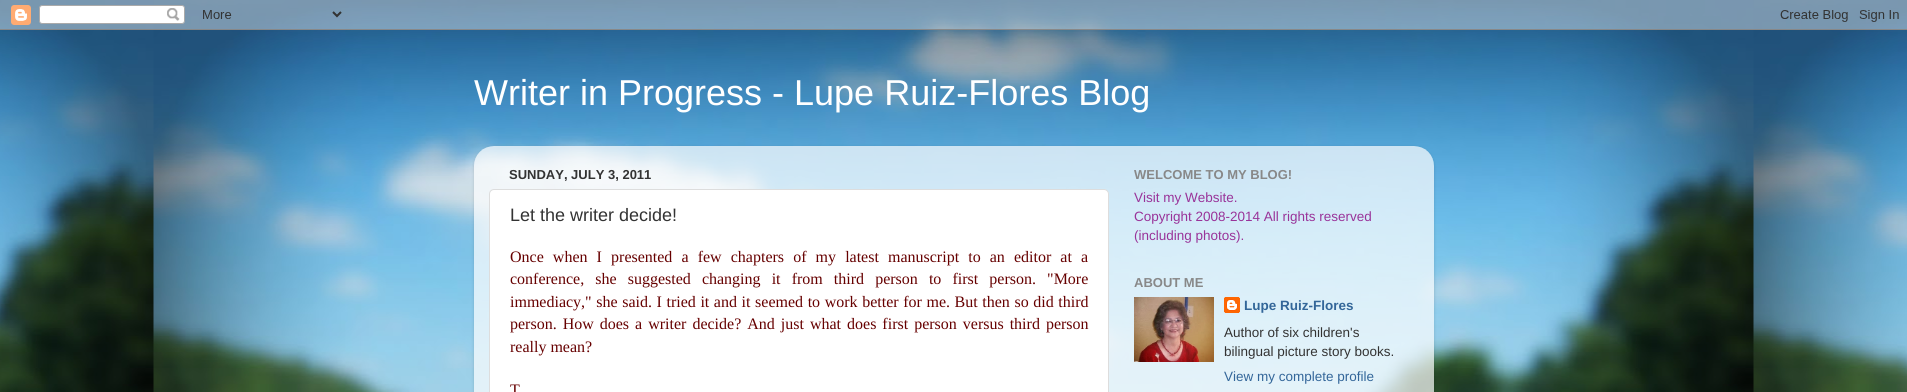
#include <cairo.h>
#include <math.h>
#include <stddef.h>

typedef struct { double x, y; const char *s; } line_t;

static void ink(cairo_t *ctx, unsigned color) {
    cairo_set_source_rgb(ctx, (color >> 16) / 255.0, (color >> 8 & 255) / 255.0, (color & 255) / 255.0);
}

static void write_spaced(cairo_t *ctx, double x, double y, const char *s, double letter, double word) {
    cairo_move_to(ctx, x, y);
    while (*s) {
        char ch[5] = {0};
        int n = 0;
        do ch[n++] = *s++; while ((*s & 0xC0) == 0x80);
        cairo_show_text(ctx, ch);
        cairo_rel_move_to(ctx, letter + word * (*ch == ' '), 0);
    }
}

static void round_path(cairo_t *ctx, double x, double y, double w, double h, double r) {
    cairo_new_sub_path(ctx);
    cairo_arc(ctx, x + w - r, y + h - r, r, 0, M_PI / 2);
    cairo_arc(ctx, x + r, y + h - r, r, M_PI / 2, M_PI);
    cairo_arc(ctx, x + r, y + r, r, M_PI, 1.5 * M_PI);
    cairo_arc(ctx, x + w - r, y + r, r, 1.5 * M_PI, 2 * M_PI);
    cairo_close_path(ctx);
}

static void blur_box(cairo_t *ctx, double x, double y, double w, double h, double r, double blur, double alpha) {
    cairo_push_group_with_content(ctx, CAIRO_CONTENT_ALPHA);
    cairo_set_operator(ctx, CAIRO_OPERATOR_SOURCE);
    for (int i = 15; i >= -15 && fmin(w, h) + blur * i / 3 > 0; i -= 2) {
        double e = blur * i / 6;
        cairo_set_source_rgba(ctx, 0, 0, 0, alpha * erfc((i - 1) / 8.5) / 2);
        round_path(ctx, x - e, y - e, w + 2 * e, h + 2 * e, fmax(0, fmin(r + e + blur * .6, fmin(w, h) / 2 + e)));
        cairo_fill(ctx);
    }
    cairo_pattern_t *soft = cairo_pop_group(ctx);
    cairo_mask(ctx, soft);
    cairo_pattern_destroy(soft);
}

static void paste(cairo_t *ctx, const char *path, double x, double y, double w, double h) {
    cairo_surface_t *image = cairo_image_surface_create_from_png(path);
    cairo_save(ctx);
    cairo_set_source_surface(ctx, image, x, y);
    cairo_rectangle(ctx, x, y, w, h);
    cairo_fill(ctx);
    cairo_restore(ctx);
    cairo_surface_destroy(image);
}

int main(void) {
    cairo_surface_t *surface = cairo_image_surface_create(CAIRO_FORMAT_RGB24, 1907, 392);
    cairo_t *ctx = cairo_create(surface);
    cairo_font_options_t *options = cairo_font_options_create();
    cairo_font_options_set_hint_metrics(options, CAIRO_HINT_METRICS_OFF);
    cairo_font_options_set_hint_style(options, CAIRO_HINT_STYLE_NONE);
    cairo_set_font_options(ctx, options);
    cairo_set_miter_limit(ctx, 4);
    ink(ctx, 0xFFFFFF);
    cairo_paint(ctx);
    paste(ctx, "media/1.png", 0, 0, 1907, 392);
    paste(ctx, "media/2.png", 0, 0, 1907, 30);
    cairo_select_font_face(ctx, "Liberation Sans", CAIRO_FONT_SLANT_NORMAL, CAIRO_FONT_WEIGHT_NORMAL);
    cairo_set_font_size(ctx, 36);
    ink(ctx, 0xFFFFFF);
    cairo_move_to(ctx, 474, 105);
    cairo_show_text(ctx, "Writer in Progress - Lupe Ruiz-Flores Blog");
    cairo_save(ctx);
    cairo_set_fill_rule(ctx, CAIRO_FILL_RULE_EVEN_ODD);
    cairo_new_path(ctx);
    cairo_move_to(ctx, 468, 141);
    cairo_line_to(ctx, 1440, 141);
    cairo_line_to(ctx, 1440, 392);
    cairo_line_to(ctx, 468, 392);
    cairo_close_path(ctx);
    cairo_move_to(ctx, 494, 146);
    cairo_line_to(ctx, 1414, 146);
    cairo_curve_to(ctx, 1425, 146, 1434, 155, 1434, 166);
    cairo_line_to(ctx, 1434, 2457);
    cairo_line_to(ctx, 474, 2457);
    cairo_line_to(ctx, 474, 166);
    cairo_curve_to(ctx, 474, 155, 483, 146, 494, 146);
    cairo_close_path(ctx);
    cairo_clip(ctx);
    ink(ctx, 0x000000);
    blur_box(ctx, 474, 147, 960, 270, 20, 1.5, 0.15);
    cairo_restore(ctx);
    paste(ctx, "media/3.png", 474, 146, 960, 246);
    cairo_select_font_face(ctx, "Liberation Sans", CAIRO_FONT_SLANT_NORMAL, CAIRO_FONT_WEIGHT_BOLD);
    cairo_set_font_size(ctx, 13);
    ink(ctx, 0x333333);
    cairo_move_to(ctx, 509, 179);
    cairo_show_text(ctx, "SUNDAY, JULY 3, 2011");
    ink(ctx, 0xFFFFFF);
    round_path(ctx, 489.5, 189.5, 619, 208, 4.5);
    cairo_fill_preserve(ctx);
    ink(ctx, 0xDDDDDD);
    cairo_set_line_width(ctx, 1);
    cairo_stroke(ctx);
    cairo_select_font_face(ctx, "Liberation Sans", CAIRO_FONT_SLANT_NORMAL, CAIRO_FONT_WEIGHT_NORMAL);
    cairo_set_font_size(ctx, 18);
    ink(ctx, 0x333333);
    cairo_move_to(ctx, 510, 221);
    cairo_show_text(ctx, "Let the writer decide!");
    cairo_select_font_face(ctx, "Liberation Serif", CAIRO_FONT_SLANT_NORMAL, CAIRO_FONT_WEIGHT_NORMAL);
    cairo_set_font_size(ctx, 16);
    ink(ctx, 0x660000);
    write_spaced(ctx, 510, 262, "Once when I presented a few chapters of my latest manuscript to an editor at a", 0, 5.1);
    write_spaced(ctx, 510, 284, "conference, she suggested changing it from third person to first person. \"More", 0, 7.1);
    write_spaced(ctx, 510, 307, "immediacy,\" she said. I tried it and it seemed to work better for me. But then so did third", 0, 0.6);
    write_spaced(ctx, 510, 329, "person. How does a writer decide? And just what does first person versus third person", 0, 2);
    cairo_move_to(ctx, 510, 352);
    cairo_show_text(ctx, "really mean?");
    cairo_move_to(ctx, 510, 395);
    cairo_show_text(ctx, "T");
    cairo_select_font_face(ctx, "Liberation Sans", CAIRO_FONT_SLANT_NORMAL, CAIRO_FONT_WEIGHT_BOLD);
    cairo_set_font_size(ctx, 13);
    ink(ctx, 0x888888);
    cairo_move_to(ctx, 1134, 179);
    cairo_show_text(ctx, "WELCOME TO MY BLOG!");
    cairo_select_font_face(ctx, "Liberation Sans", CAIRO_FONT_SLANT_NORMAL, CAIRO_FONT_WEIGHT_NORMAL);
    cairo_set_font_size(ctx, 13.5);
    ink(ctx, 0x993399);
    {
        static const line_t items[] = {
            {1134, 202, "Visit my Website."},
            {1134, 221, "Copyright 2008-2014 All rights reserved"},
            {1134, 240, "(including photos)."},
        };
        for (size_t i = 0; i < sizeof items / sizeof *items; i++) {
            cairo_move_to(ctx, items[i].x, items[i].y);
            cairo_show_text(ctx, items[i].s);
        }
    }
    cairo_select_font_face(ctx, "Liberation Sans", CAIRO_FONT_SLANT_NORMAL, CAIRO_FONT_WEIGHT_BOLD);
    cairo_set_font_size(ctx, 13);
    ink(ctx, 0x888888);
    cairo_move_to(ctx, 1134, 287);
    cairo_show_text(ctx, "ABOUT ME");
    paste(ctx, "media/4.png", 1134, 297, 80, 65);
    paste(ctx, "media/5.png", 1224, 297, 16, 16);
    cairo_set_font_size(ctx, 13.5);
    ink(ctx, 0x336699);
    cairo_move_to(ctx, 1244, 310);
    cairo_show_text(ctx, "Lupe Ruiz-Flores");
    cairo_select_font_face(ctx, "Liberation Sans", CAIRO_FONT_SLANT_NORMAL, CAIRO_FONT_WEIGHT_NORMAL);
    ink(ctx, 0x333333);
    cairo_move_to(ctx, 1224, 337);
    cairo_show_text(ctx, "Author of six children's");
    cairo_move_to(ctx, 1224, 356);
    cairo_show_text(ctx, "bilingual picture story books.");
    ink(ctx, 0x336699);
    cairo_move_to(ctx, 1224, 381);
    cairo_show_text(ctx, "View my complete profile");
    cairo_surface_write_to_png(surface, "image.png");
    cairo_font_options_destroy(options);
    cairo_destroy(ctx);
    cairo_surface_destroy(surface);
    return 0;
}
